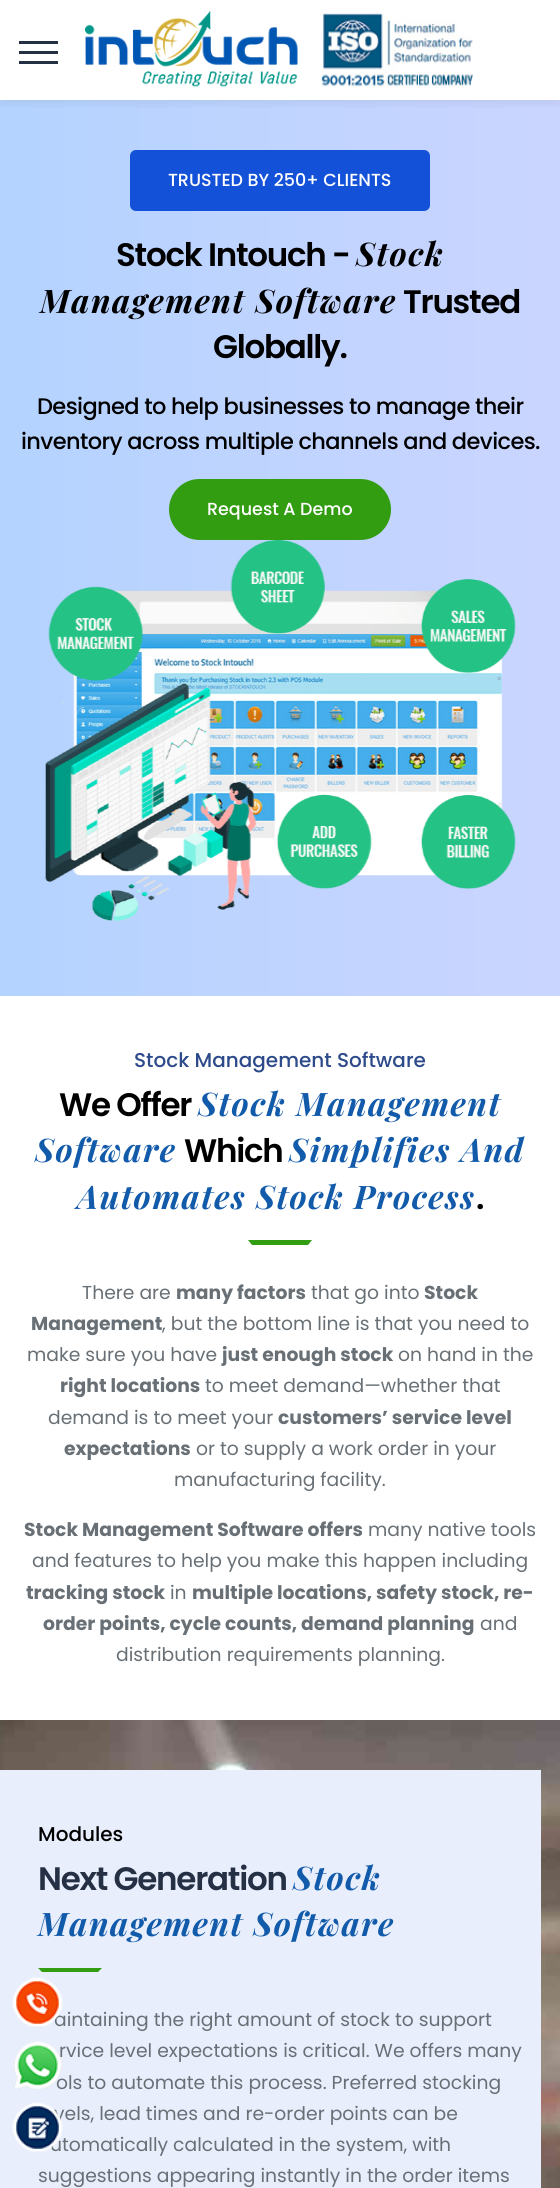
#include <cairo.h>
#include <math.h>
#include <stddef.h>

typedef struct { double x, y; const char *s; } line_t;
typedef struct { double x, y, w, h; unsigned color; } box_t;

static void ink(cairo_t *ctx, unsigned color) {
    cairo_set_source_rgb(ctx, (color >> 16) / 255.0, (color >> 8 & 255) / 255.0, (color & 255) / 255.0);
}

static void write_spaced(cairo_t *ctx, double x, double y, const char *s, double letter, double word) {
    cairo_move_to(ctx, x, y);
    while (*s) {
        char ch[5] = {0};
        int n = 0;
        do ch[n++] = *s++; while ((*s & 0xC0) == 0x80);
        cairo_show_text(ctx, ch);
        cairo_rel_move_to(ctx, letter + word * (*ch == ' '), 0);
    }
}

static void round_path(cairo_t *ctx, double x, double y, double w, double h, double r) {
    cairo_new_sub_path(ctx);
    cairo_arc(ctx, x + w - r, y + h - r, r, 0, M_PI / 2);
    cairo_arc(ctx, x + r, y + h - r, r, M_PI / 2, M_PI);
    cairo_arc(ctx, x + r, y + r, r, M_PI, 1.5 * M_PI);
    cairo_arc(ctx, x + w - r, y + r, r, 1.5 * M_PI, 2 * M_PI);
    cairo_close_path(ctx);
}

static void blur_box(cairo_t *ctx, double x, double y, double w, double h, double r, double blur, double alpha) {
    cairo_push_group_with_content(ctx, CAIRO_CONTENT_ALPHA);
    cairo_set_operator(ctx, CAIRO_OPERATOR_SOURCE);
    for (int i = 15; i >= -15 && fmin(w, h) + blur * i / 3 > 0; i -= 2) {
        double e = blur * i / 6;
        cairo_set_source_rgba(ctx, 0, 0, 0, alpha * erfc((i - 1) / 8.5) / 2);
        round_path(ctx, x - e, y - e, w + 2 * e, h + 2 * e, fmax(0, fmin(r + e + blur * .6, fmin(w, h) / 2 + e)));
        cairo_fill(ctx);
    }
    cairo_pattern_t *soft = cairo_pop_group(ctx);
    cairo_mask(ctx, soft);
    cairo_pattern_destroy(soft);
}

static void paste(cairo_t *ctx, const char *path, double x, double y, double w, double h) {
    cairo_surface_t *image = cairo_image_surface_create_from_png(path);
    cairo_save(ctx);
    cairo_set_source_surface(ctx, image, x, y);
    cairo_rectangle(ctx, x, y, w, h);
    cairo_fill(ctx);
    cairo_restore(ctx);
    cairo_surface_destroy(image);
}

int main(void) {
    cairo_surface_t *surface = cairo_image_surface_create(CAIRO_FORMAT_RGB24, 560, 2188);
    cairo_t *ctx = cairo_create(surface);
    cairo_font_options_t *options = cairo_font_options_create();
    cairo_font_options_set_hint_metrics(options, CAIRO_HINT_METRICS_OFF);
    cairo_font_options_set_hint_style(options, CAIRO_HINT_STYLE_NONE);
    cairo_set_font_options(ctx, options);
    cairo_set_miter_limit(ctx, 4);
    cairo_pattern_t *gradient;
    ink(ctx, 0xFFFFFF);
    cairo_paint(ctx);
    gradient = cairo_pattern_create_linear(0, 1094, 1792, 1094);
    cairo_pattern_add_color_stop_rgba(gradient, 0, 0.706, 0.827, 1, 1);
    cairo_pattern_add_color_stop_rgba(gradient, 0.5, 0.843, 0.839, 1, 1);
    cairo_pattern_add_color_stop_rgba(gradient, 1, 0.788, 1, 0.792, 1);
    cairo_set_source(ctx, gradient);
    cairo_pattern_destroy(gradient);
    cairo_rectangle(ctx, 0, 100, 560, 896);
    cairo_fill(ctx);
    cairo_save(ctx);
    cairo_rectangle(ctx, 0, 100, 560, 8);
    cairo_clip(ctx);
    ink(ctx, 0x000000);
    blur_box(ctx, 0, 5, 560, 100, 0, 6, 0.06);
    cairo_restore(ctx);
    {
        static const box_t items[] = {
            {19, 41, 39, 3, 0x263045},
            {19, 51, 39, 3, 0x263045},
            {19, 61, 39, 3, 0x263045},
        };
        for (size_t i = 0; i < sizeof items / sizeof *items; i++) {
            ink(ctx, items[i].color);
            cairo_rectangle(ctx, items[i].x, items[i].y, items[i].w, items[i].h);
            cairo_fill(ctx);
        }
    }
    paste(ctx, "media/1.png", 85, 11, 213, 76);
    paste(ctx, "media/2.png", 321, 13, 152, 74);
    ink(ctx, 0x1351D8);
    round_path(ctx, 130, 150, 300, 61, 6);
    cairo_fill(ctx);
    cairo_select_font_face(ctx, "Poppins Medium", CAIRO_FONT_SLANT_NORMAL, CAIRO_FONT_WEIGHT_NORMAL);
    cairo_set_font_size(ctx, 17.5);
    ink(ctx, 0xFFFFFF);
    cairo_move_to(ctx, 168, 186);
    cairo_show_text(ctx, "TRUSTED BY 250+ CLIENTS");
    cairo_select_font_face(ctx, "Poppins SemiBold", CAIRO_FONT_SLANT_NORMAL, CAIRO_FONT_WEIGHT_NORMAL);
    cairo_set_font_size(ctx, 32.5);
    ink(ctx, 0x000000);
    write_spaced(ctx, 116, 266, "Stock Intouch -", -1.25, 0);
    cairo_select_font_face(ctx, "Playfair Display", CAIRO_FONT_SLANT_ITALIC, CAIRO_FONT_WEIGHT_BOLD);
    write_spaced(ctx, 356, 266, "Stock", 1.5, 0);
    write_spaced(ctx, 40, 313, "Management Software", 1.5, 0);
    cairo_select_font_face(ctx, "Poppins SemiBold", CAIRO_FONT_SLANT_NORMAL, CAIRO_FONT_WEIGHT_NORMAL);
    write_spaced(ctx, 403, 313, "Trusted", -1.25, 0);
    write_spaced(ctx, 213, 358, "Globally.", -1.25, 0);
    cairo_select_font_face(ctx, "Poppins Medium", CAIRO_FONT_SLANT_NORMAL, CAIRO_FONT_WEIGHT_NORMAL);
    cairo_set_font_size(ctx, 22.5);
    write_spaced(ctx, 37, 414, "Designed to help businesses to manage their", -0.6, 0);
    write_spaced(ctx, 21, 449, "inventory across multiple channels and devices.", -0.6, 0);
    ink(ctx, 0x339D12);
    round_path(ctx, 169, 479, 222, 61, 30.5);
    cairo_fill(ctx);
    cairo_set_font_size(ctx, 17.5);
    ink(ctx, 0xFFFFFF);
    cairo_move_to(ctx, 207, 515);
    cairo_show_text(ctx, "Request A Demo");
    paste(ctx, "media/3.png", 45, 540, 471, 382);
    cairo_set_font_size(ctx, 20);
    ink(ctx, 0x2D4A8A);
    cairo_move_to(ctx, 134, 1067);
    cairo_show_text(ctx, "Stock Management Software");
    cairo_select_font_face(ctx, "Poppins SemiBold", CAIRO_FONT_SLANT_NORMAL, CAIRO_FONT_WEIGHT_NORMAL);
    cairo_set_font_size(ctx, 32.5);
    ink(ctx, 0x000000);
    write_spaced(ctx, 59, 1116, "We Offer", -1.25, 0);
    cairo_select_font_face(ctx, "Playfair Display", CAIRO_FONT_SLANT_ITALIC, CAIRO_FONT_WEIGHT_BOLD);
    ink(ctx, 0x125AAA);
    write_spaced(ctx, 198, 1116, "Stock Management", 1.5, 0);
    write_spaced(ctx, 35, 1162, "Software", 1.5, 0);
    cairo_select_font_face(ctx, "Poppins SemiBold", CAIRO_FONT_SLANT_NORMAL, CAIRO_FONT_WEIGHT_NORMAL);
    ink(ctx, 0x000000);
    write_spaced(ctx, 184, 1162, "Which", -1.25, 0);
    cairo_select_font_face(ctx, "Playfair Display", CAIRO_FONT_SLANT_ITALIC, CAIRO_FONT_WEIGHT_BOLD);
    ink(ctx, 0x125AAA);
    write_spaced(ctx, 289, 1162, "Simplifies And", 1.5, 0);
    write_spaced(ctx, 77, 1209, "Automates Stock Process", 1.5, 0);
    cairo_select_font_face(ctx, "Poppins SemiBold", CAIRO_FONT_SLANT_NORMAL, CAIRO_FONT_WEIGHT_NORMAL);
    ink(ctx, 0x000000);
    write_spaced(ctx, 476, 1209, ".", -1.25, 0);
    ink(ctx, 0x339D12);
    cairo_new_path(ctx);
    cairo_move_to(ctx, 248, 1240);
    cairo_line_to(ctx, 312, 1240);
    cairo_line_to(ctx, 308, 1245);
    cairo_line_to(ctx, 252, 1245);
    cairo_close_path(ctx);
    cairo_fill(ctx);
    cairo_select_font_face(ctx, "Poppins", CAIRO_FONT_SLANT_NORMAL, CAIRO_FONT_WEIGHT_NORMAL);
    cairo_set_font_size(ctx, 18.75);
    ink(ctx, 0x687076);
    cairo_move_to(ctx, 82, 1299);
    cairo_show_text(ctx, "There are");
    cairo_select_font_face(ctx, "Poppins", CAIRO_FONT_SLANT_NORMAL, CAIRO_FONT_WEIGHT_BOLD);
    cairo_move_to(ctx, 176, 1299);
    cairo_show_text(ctx, "many factors");
    cairo_select_font_face(ctx, "Poppins", CAIRO_FONT_SLANT_NORMAL, CAIRO_FONT_WEIGHT_NORMAL);
    cairo_move_to(ctx, 311, 1299);
    cairo_show_text(ctx, "that go into");
    cairo_select_font_face(ctx, "Poppins", CAIRO_FONT_SLANT_NORMAL, CAIRO_FONT_WEIGHT_BOLD);
    cairo_move_to(ctx, 424, 1299);
    cairo_show_text(ctx, "Stock");
    cairo_move_to(ctx, 31, 1330);
    cairo_show_text(ctx, "Management");
    cairo_select_font_face(ctx, "Poppins", CAIRO_FONT_SLANT_NORMAL, CAIRO_FONT_WEIGHT_NORMAL);
    cairo_move_to(ctx, 162, 1330);
    cairo_show_text(ctx, ", but the bottom line is that you need to");
    cairo_move_to(ctx, 27, 1361);
    cairo_show_text(ctx, "make sure you have");
    cairo_select_font_face(ctx, "Poppins", CAIRO_FONT_SLANT_NORMAL, CAIRO_FONT_WEIGHT_BOLD);
    cairo_move_to(ctx, 222, 1361);
    cairo_show_text(ctx, "just enough stock");
    cairo_select_font_face(ctx, "Poppins", CAIRO_FONT_SLANT_NORMAL, CAIRO_FONT_WEIGHT_NORMAL);
    cairo_move_to(ctx, 398, 1361);
    cairo_show_text(ctx, "on hand in the");
    cairo_select_font_face(ctx, "Poppins", CAIRO_FONT_SLANT_NORMAL, CAIRO_FONT_WEIGHT_BOLD);
    cairo_move_to(ctx, 60, 1392);
    cairo_show_text(ctx, "right locations");
    cairo_select_font_face(ctx, "Poppins", CAIRO_FONT_SLANT_NORMAL, CAIRO_FONT_WEIGHT_NORMAL);
    cairo_move_to(ctx, 205, 1392);
    cairo_show_text(ctx, "to meet demand—whether that");
    cairo_move_to(ctx, 48, 1424);
    cairo_show_text(ctx, "demand is to meet your");
    cairo_select_font_face(ctx, "Poppins", CAIRO_FONT_SLANT_NORMAL, CAIRO_FONT_WEIGHT_BOLD);
    cairo_move_to(ctx, 278, 1424);
    cairo_show_text(ctx, "customers’ service level");
    cairo_move_to(ctx, 64, 1455);
    cairo_show_text(ctx, "expectations");
    cairo_select_font_face(ctx, "Poppins", CAIRO_FONT_SLANT_NORMAL, CAIRO_FONT_WEIGHT_NORMAL);
    cairo_move_to(ctx, 196, 1455);
    cairo_show_text(ctx, "or to supply a work order in your");
    cairo_move_to(ctx, 174, 1486);
    cairo_show_text(ctx, "manufacturing facility.");
    cairo_select_font_face(ctx, "Poppins", CAIRO_FONT_SLANT_NORMAL, CAIRO_FONT_WEIGHT_BOLD);
    cairo_move_to(ctx, 24, 1536);
    cairo_show_text(ctx, "Stock Management Software offers");
    cairo_select_font_face(ctx, "Poppins", CAIRO_FONT_SLANT_NORMAL, CAIRO_FONT_WEIGHT_NORMAL);
    cairo_move_to(ctx, 368, 1536);
    cairo_show_text(ctx, "many native tools");
    cairo_move_to(ctx, 32, 1567);
    cairo_show_text(ctx, "and features to help you make this happen including");
    cairo_select_font_face(ctx, "Poppins", CAIRO_FONT_SLANT_NORMAL, CAIRO_FONT_WEIGHT_BOLD);
    cairo_move_to(ctx, 26, 1599);
    cairo_show_text(ctx, "tracking stock");
    cairo_select_font_face(ctx, "Poppins", CAIRO_FONT_SLANT_NORMAL, CAIRO_FONT_WEIGHT_NORMAL);
    cairo_move_to(ctx, 170, 1599);
    cairo_show_text(ctx, "in");
    cairo_select_font_face(ctx, "Poppins", CAIRO_FONT_SLANT_NORMAL, CAIRO_FONT_WEIGHT_BOLD);
    cairo_move_to(ctx, 192, 1599);
    cairo_show_text(ctx, "multiple locations, safety stock, re-");
    cairo_move_to(ctx, 43, 1630);
    cairo_show_text(ctx, "order points, cycle counts, demand planning");
    cairo_select_font_face(ctx, "Poppins", CAIRO_FONT_SLANT_NORMAL, CAIRO_FONT_WEIGHT_NORMAL);
    cairo_move_to(ctx, 480, 1630);
    cairo_show_text(ctx, "and");
    cairo_move_to(ctx, 116, 1661);
    cairo_show_text(ctx, "distribution requirements planning.");
    paste(ctx, "media/4.png", 0, 1720, 560, 468);
    ink(ctx, 0xE8EEFC);
    cairo_rectangle(ctx, 0, 1770, 541, 418);
    cairo_fill(ctx);
    cairo_select_font_face(ctx, "Poppins Medium", CAIRO_FONT_SLANT_NORMAL, CAIRO_FONT_WEIGHT_NORMAL);
    cairo_set_font_size(ctx, 20);
    ink(ctx, 0x000000);
    cairo_move_to(ctx, 38, 1841);
    cairo_show_text(ctx, "Modules");
    cairo_select_font_face(ctx, "Poppins SemiBold", CAIRO_FONT_SLANT_NORMAL, CAIRO_FONT_WEIGHT_NORMAL);
    cairo_set_font_size(ctx, 32.5);
    ink(ctx, 0x263045);
    write_spaced(ctx, 38, 1890, "Next Generation", -1.25, 0);
    cairo_select_font_face(ctx, "Playfair Display", CAIRO_FONT_SLANT_ITALIC, CAIRO_FONT_WEIGHT_BOLD);
    ink(ctx, 0x125AAA);
    write_spaced(ctx, 293, 1890, "Stock", 1.5, 0);
    write_spaced(ctx, 38, 1936, "Management Software", 1.5, 0);
    ink(ctx, 0x339D12);
    cairo_new_path(ctx);
    cairo_move_to(ctx, 38, 1968);
    cairo_line_to(ctx, 102, 1968);
    cairo_line_to(ctx, 98, 1972);
    cairo_line_to(ctx, 42, 1972);
    cairo_close_path(ctx);
    cairo_fill(ctx);
    cairo_select_font_face(ctx, "Poppins", CAIRO_FONT_SLANT_NORMAL, CAIRO_FONT_WEIGHT_NORMAL);
    cairo_set_font_size(ctx, 18.75);
    ink(ctx, 0x687076);
    {
        static const line_t items[] = {
            {54, 2026, "aintaining the right amount of stock to support"},
            {59, 2057, "rvice level expectations is critical. We offers many"},
            {56, 2089, "ols to automate this process. Preferred stocking"},
            {54, 2120, "vels, lead times and re-order points can be"},
            {50, 2151, "utomatically calculated in the system, with"},
            {38, 2182, "suggestions appearing instantly in the order items"},
        };
        for (size_t i = 0; i < sizeof items / sizeof *items; i++) {
            cairo_move_to(ctx, items[i].x, items[i].y);
            cairo_show_text(ctx, items[i].s);
        }
    }
    paste(ctx, "media/5.png", 12, 1977, 51, 50);
    paste(ctx, "media/6.png", 13, 2041, 50, 48);
    paste(ctx, "media/7.png", 12, 2102, 51, 50);
    cairo_surface_write_to_png(surface, "image.png");
    cairo_font_options_destroy(options);
    cairo_destroy(ctx);
    cairo_surface_destroy(surface);
    return 0;
}
